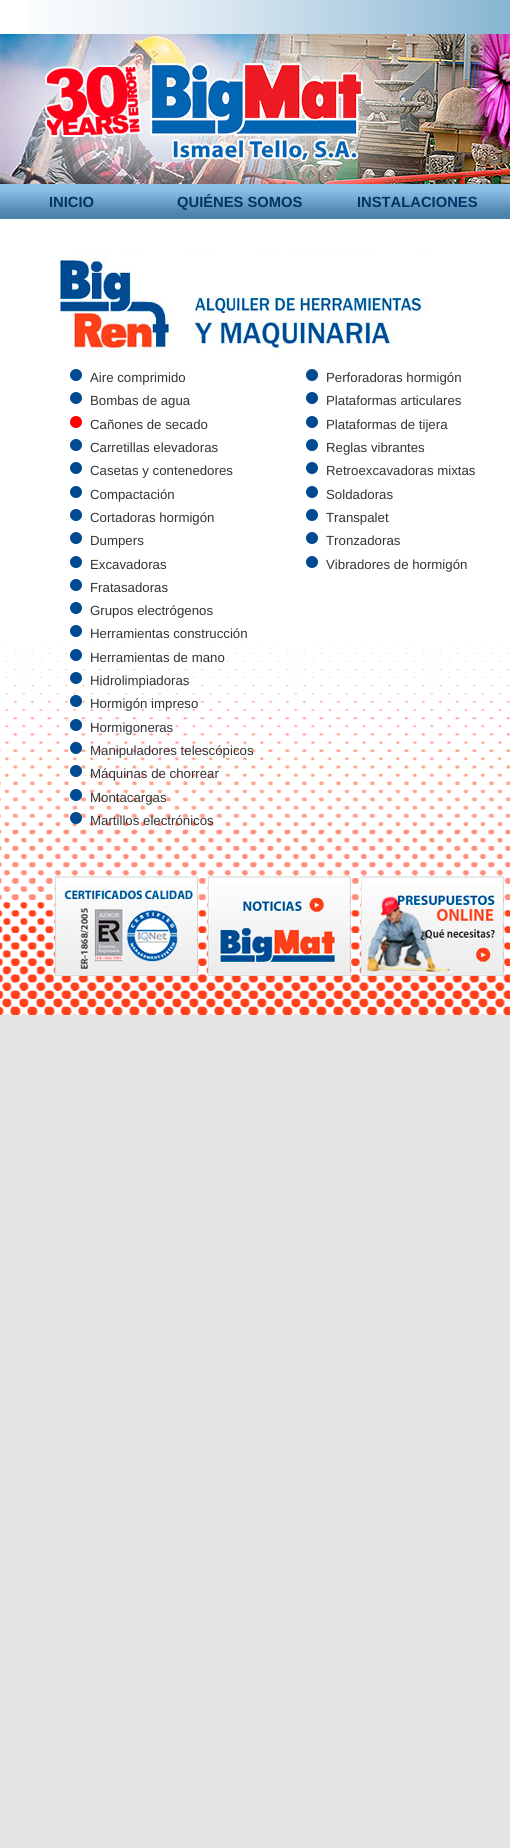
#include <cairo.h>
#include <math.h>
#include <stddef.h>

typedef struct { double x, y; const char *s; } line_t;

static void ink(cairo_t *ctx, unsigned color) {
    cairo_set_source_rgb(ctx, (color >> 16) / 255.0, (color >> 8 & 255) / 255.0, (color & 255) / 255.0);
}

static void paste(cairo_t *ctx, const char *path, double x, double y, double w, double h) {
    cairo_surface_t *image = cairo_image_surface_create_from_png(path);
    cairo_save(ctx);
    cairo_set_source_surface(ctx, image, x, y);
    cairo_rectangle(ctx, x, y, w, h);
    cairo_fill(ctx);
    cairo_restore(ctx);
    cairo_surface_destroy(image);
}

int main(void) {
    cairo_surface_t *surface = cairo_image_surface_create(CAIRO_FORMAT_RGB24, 510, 1848);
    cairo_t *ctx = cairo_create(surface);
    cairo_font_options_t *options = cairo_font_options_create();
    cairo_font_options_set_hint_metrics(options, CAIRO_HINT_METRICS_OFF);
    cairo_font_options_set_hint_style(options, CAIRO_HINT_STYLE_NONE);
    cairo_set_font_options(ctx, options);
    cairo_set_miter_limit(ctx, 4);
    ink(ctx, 0xE4E4E4);
    cairo_paint(ctx);
    ink(ctx, 0xFFFFFF);
    cairo_rectangle(ctx, 0, 0, 30, 34);
    cairo_fill(ctx);
    paste(ctx, "media/1.png", 30, 0, 480, 34);
    paste(ctx, "media/2.png", 0, 34, 510, 150);
    paste(ctx, "media/3.png", 0, 184, 510, 35);
    cairo_select_font_face(ctx, "Liberation Sans", CAIRO_FONT_SLANT_NORMAL, CAIRO_FONT_WEIGHT_BOLD);
    cairo_set_font_size(ctx, 14.75);
    ink(ctx, 0x003366);
    {
        static const line_t items[] = {
            {49, 207, "INICIO"},
            {177, 207, "QUIÉNES SOMOS"},
            {357, 207, "INSTALACIONES"},
        };
        for (size_t i = 0; i < sizeof items / sizeof *items; i++) {
            cairo_move_to(ctx, items[i].x, items[i].y);
            cairo_show_text(ctx, items[i].s);
        }
    }
    ink(ctx, 0xFFFFFF);
    cairo_rectangle(ctx, 0, 219, 510, 425);
    cairo_fill(ctx);
    paste(ctx, "media/4.png", 0, 644, 510, 371);
    paste(ctx, "media/5.png", 57, 249, 372, 104);
    paste(ctx, "media/6.png", 70, 369, 12, 12);
    cairo_select_font_face(ctx, "Liberation Sans", CAIRO_FONT_SLANT_NORMAL, CAIRO_FONT_WEIGHT_NORMAL);
    cairo_set_font_size(ctx, 13.25);
    ink(ctx, 0x333333);
    cairo_move_to(ctx, 90, 382);
    cairo_show_text(ctx, "Aire comprimido");
    paste(ctx, "media/6.png", 70, 392, 12, 12);
    cairo_move_to(ctx, 90, 405);
    cairo_show_text(ctx, "Bombas de agua");
    paste(ctx, "media/7.png", 70, 416, 12, 12);
    cairo_move_to(ctx, 90, 429);
    cairo_show_text(ctx, "Cañones de secado");
    paste(ctx, "media/6.png", 70, 439, 12, 12);
    cairo_move_to(ctx, 90, 452);
    cairo_show_text(ctx, "Carretillas elevadoras");
    paste(ctx, "media/6.png", 70, 462, 12, 12);
    cairo_move_to(ctx, 90, 475);
    cairo_show_text(ctx, "Casetas y contenedores");
    paste(ctx, "media/6.png", 70, 486, 12, 12);
    cairo_move_to(ctx, 90, 499);
    cairo_show_text(ctx, "Compactación");
    paste(ctx, "media/6.png", 70, 509, 12, 12);
    cairo_move_to(ctx, 90, 522);
    cairo_show_text(ctx, "Cortadoras hormigón");
    paste(ctx, "media/6.png", 70, 532, 12, 12);
    cairo_move_to(ctx, 90, 545);
    cairo_show_text(ctx, "Dumpers");
    paste(ctx, "media/6.png", 70, 556, 12, 12);
    cairo_move_to(ctx, 90, 569);
    cairo_show_text(ctx, "Excavadoras");
    paste(ctx, "media/6.png", 70, 579, 12, 12);
    cairo_move_to(ctx, 90, 592);
    cairo_show_text(ctx, "Fratasadoras");
    paste(ctx, "media/6.png", 70, 602, 12, 12);
    cairo_move_to(ctx, 90, 615);
    cairo_show_text(ctx, "Grupos electrógenos");
    paste(ctx, "media/6.png", 70, 625, 12, 12);
    cairo_move_to(ctx, 90, 638);
    cairo_show_text(ctx, "Herramientas construcción");
    paste(ctx, "media/8.png", 70, 649, 12, 12);
    cairo_move_to(ctx, 90, 662);
    cairo_show_text(ctx, "Herramientas de mano");
    paste(ctx, "media/6.png", 70, 672, 12, 12);
    cairo_move_to(ctx, 90, 685);
    cairo_show_text(ctx, "Hidrolimpiadoras");
    paste(ctx, "media/9.png", 70, 695, 12, 12);
    cairo_move_to(ctx, 90, 708);
    cairo_show_text(ctx, "Hormigón impreso");
    paste(ctx, "media/10.png", 70, 719, 12, 12);
    cairo_move_to(ctx, 90, 732);
    cairo_show_text(ctx, "Hormigoneras");
    paste(ctx, "media/11.png", 70, 742, 12, 12);
    cairo_move_to(ctx, 90, 755);
    cairo_show_text(ctx, "Manipuladores telescópicos");
    paste(ctx, "media/12.png", 70, 765, 12, 12);
    cairo_move_to(ctx, 90, 778);
    cairo_show_text(ctx, "Máquinas de chorrear");
    paste(ctx, "media/13.png", 70, 789, 12, 12);
    cairo_move_to(ctx, 90, 802);
    cairo_show_text(ctx, "Montacargas");
    paste(ctx, "media/14.png", 70, 812, 12, 12);
    cairo_move_to(ctx, 90, 825);
    cairo_show_text(ctx, "Martillos electrónicos");
    paste(ctx, "media/6.png", 306, 369, 12, 12);
    cairo_move_to(ctx, 326, 382);
    cairo_show_text(ctx, "Perforadoras hormigón");
    paste(ctx, "media/6.png", 306, 392, 12, 12);
    cairo_move_to(ctx, 326, 405);
    cairo_show_text(ctx, "Plataformas articulares");
    paste(ctx, "media/6.png", 306, 416, 12, 12);
    cairo_move_to(ctx, 326, 429);
    cairo_show_text(ctx, "Plataformas de tijera");
    paste(ctx, "media/6.png", 306, 439, 12, 12);
    cairo_move_to(ctx, 326, 452);
    cairo_show_text(ctx, "Reglas vibrantes");
    paste(ctx, "media/6.png", 306, 462, 12, 12);
    cairo_move_to(ctx, 326, 475);
    cairo_show_text(ctx, "Retroexcavadoras mixtas");
    paste(ctx, "media/6.png", 306, 486, 12, 12);
    cairo_move_to(ctx, 326, 499);
    cairo_show_text(ctx, "Soldadoras");
    paste(ctx, "media/6.png", 306, 509, 12, 12);
    cairo_move_to(ctx, 326, 522);
    cairo_show_text(ctx, "Transpalet");
    paste(ctx, "media/6.png", 306, 532, 12, 12);
    cairo_move_to(ctx, 326, 545);
    cairo_show_text(ctx, "Tronzadoras");
    paste(ctx, "media/6.png", 306, 556, 12, 12);
    cairo_move_to(ctx, 326, 569);
    cairo_show_text(ctx, "Vibradores de hormigón");
    paste(ctx, "media/15.png", 55, 876, 143, 100);
    paste(ctx, "media/16.png", 208, 876, 143, 100);
    paste(ctx, "media/17.png", 361, 876, 143, 100);
    cairo_surface_write_to_png(surface, "image.png");
    cairo_font_options_destroy(options);
    cairo_destroy(ctx);
    cairo_surface_destroy(surface);
    return 0;
}
